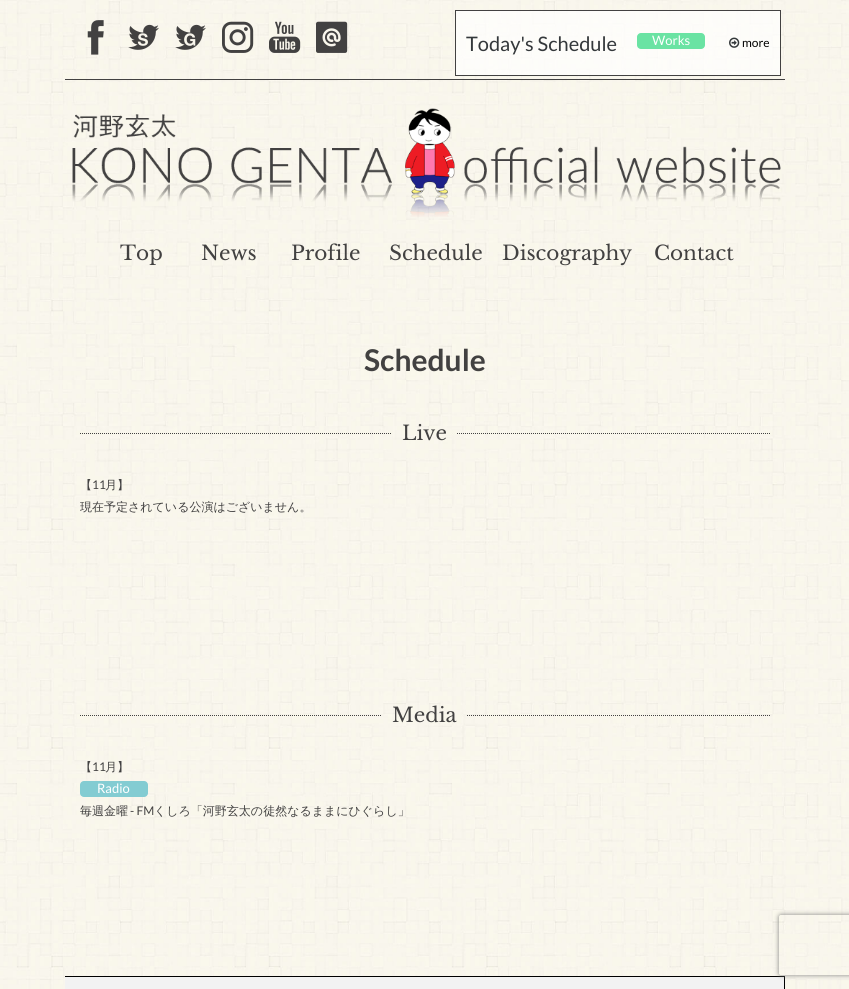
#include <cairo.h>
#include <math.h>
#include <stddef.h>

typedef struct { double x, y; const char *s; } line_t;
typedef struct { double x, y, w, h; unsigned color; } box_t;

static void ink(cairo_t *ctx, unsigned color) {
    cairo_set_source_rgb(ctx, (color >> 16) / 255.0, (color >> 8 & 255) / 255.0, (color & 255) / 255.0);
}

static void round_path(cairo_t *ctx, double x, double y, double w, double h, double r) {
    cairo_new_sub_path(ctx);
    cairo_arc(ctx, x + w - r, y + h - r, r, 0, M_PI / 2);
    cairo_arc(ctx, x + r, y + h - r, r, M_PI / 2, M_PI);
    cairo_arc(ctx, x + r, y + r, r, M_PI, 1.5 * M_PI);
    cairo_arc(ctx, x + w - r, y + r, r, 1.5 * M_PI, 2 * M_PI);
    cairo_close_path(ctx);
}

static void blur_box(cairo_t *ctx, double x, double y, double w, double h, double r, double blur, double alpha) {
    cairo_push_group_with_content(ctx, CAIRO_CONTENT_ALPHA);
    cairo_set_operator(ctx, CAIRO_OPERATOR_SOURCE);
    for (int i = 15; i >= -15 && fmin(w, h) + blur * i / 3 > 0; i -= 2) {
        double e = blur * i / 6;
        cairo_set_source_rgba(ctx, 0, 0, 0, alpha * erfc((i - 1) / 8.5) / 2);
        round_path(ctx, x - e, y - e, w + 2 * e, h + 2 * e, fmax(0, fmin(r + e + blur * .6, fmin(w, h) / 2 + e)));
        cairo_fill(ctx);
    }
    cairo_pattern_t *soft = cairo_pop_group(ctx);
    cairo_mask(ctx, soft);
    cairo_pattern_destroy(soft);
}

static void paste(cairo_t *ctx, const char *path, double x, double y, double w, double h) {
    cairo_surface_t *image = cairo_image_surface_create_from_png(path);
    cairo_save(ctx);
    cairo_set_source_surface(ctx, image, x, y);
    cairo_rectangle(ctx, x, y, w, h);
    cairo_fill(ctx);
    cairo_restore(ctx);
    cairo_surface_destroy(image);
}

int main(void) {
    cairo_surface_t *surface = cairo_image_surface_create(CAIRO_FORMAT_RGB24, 849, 989);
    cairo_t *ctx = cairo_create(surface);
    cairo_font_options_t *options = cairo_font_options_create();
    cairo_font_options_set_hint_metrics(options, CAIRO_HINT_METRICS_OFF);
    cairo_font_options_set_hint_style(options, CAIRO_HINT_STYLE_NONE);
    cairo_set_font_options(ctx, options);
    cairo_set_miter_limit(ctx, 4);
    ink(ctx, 0xFFFFFF);
    cairo_paint(ctx);
    paste(ctx, "media/1.png", 0, 0, 849, 989);
    ink(ctx, 0x424141);
    cairo_rectangle(ctx, 65, 79, 720, 1);
    cairo_fill(ctx);
    paste(ctx, "media/2.png", 87, 20, 17, 35);
    paste(ctx, "media/3.png", 128, 24, 31, 26);
    paste(ctx, "media/4.png", 175, 24, 31, 26);
    paste(ctx, "media/5.png", 222, 21, 32, 32);
    paste(ctx, "media/6.png", 269, 21, 32, 32);
    paste(ctx, "media/7.png", 316, 21, 32, 32);
    cairo_set_source_rgba(ctx, 1, 1, 1, 0.7);
    cairo_rectangle(ctx, 456, 11, 324, 64);
    cairo_fill(ctx);
    ink(ctx, 0x424141);
    cairo_rectangle(ctx, 455, 10, 326, 1);
    cairo_fill(ctx);
    cairo_rectangle(ctx, 780, 10, 1, 66);
    cairo_fill(ctx);
    cairo_rectangle(ctx, 455, 75, 326, 1);
    cairo_fill(ctx);
    cairo_rectangle(ctx, 455, 10, 1, 66);
    cairo_fill(ctx);
    cairo_select_font_face(ctx, "Lato", CAIRO_FONT_SLANT_NORMAL, CAIRO_FONT_WEIGHT_NORMAL);
    cairo_set_font_size(ctx, 20);
    ink(ctx, 0x34383B);
    cairo_move_to(ctx, 466, 51);
    cairo_show_text(ctx, "Today's Schedule");
    ink(ctx, 0x6AE3A3);
    round_path(ctx, 637, 33, 68, 16, 4);
    cairo_fill(ctx);
    cairo_set_font_size(ctx, 13);
    ink(ctx, 0xFFFFFF);
    cairo_move_to(ctx, 652, 45);
    cairo_show_text(ctx, "Works");
    paste(ctx, "media/8.png", 729, 37, 11, 11);
    cairo_set_font_size(ctx, 12);
    ink(ctx, 0x000000);
    cairo_move_to(ctx, 742, 47);
    cairo_show_text(ctx, "more");
    paste(ctx, "media/9.png", 72, 108, 709, 109);
    cairo_select_font_face(ctx, "Libre Baskerville", CAIRO_FONT_SLANT_NORMAL, CAIRO_FONT_WEIGHT_NORMAL);
    cairo_set_font_size(ctx, 20);
    ink(ctx, 0x424141);
    {
        static const line_t items[] = {
            {120, 260, "Top"},
            {201, 260, "News"},
            {291, 260, "Profile"},
            {389, 260, "Schedule"},
            {502, 260, "Discography"},
            {654, 260, "Contact"},
        };
        for (size_t i = 0; i < sizeof items / sizeof *items; i++) {
            cairo_move_to(ctx, items[i].x, items[i].y);
            cairo_show_text(ctx, items[i].s);
        }
    }
    cairo_select_font_face(ctx, "Lato", CAIRO_FONT_SLANT_NORMAL, CAIRO_FONT_WEIGHT_BOLD);
    cairo_set_font_size(ctx, 30);
    cairo_move_to(ctx, 364, 371);
    cairo_show_text(ctx, "Schedule");
    cairo_new_path(ctx);
    cairo_move_to(ctx, 80, 433.5);
    cairo_line_to(ctx, 392, 433.5);
    cairo_set_line_width(ctx, 1);
    cairo_set_dash(ctx, (double[]){1, 1}, 2, 0);
    cairo_stroke(ctx);
    cairo_select_font_face(ctx, "Libre Baskerville", CAIRO_FONT_SLANT_NORMAL, CAIRO_FONT_WEIGHT_NORMAL);
    cairo_set_font_size(ctx, 20);
    cairo_move_to(ctx, 402, 440);
    cairo_show_text(ctx, "Live");
    cairo_new_path(ctx);
    cairo_move_to(ctx, 457, 433.5);
    cairo_line_to(ctx, 770, 433.5);
    cairo_stroke(ctx);
    cairo_select_font_face(ctx, "WenQuanYi Zen Hei Medium", CAIRO_FONT_SLANT_NORMAL, CAIRO_FONT_WEIGHT_NORMAL);
    cairo_set_font_size(ctx, 12);
    cairo_move_to(ctx, 80, 489);
    cairo_show_text(ctx, "【");
    cairo_select_font_face(ctx, "Lato", CAIRO_FONT_SLANT_NORMAL, CAIRO_FONT_WEIGHT_NORMAL);
    cairo_move_to(ctx, 92, 489);
    cairo_show_text(ctx, "11");
    cairo_select_font_face(ctx, "WenQuanYi Zen Hei Medium", CAIRO_FONT_SLANT_NORMAL, CAIRO_FONT_WEIGHT_NORMAL);
    cairo_move_to(ctx, 105, 489);
    cairo_show_text(ctx, "月】");
    cairo_save(ctx);
    cairo_rectangle(ctx, 80, 474, 690, 190);
    cairo_clip(ctx);
    cairo_move_to(ctx, 80, 511);
    cairo_show_text(ctx, "現在予定されている公演はございません。");
    cairo_restore(ctx);
    cairo_new_path(ctx);
    cairo_move_to(ctx, 80, 715.5);
    cairo_line_to(ctx, 382, 715.5);
    cairo_stroke(ctx);
    cairo_select_font_face(ctx, "Libre Baskerville", CAIRO_FONT_SLANT_NORMAL, CAIRO_FONT_WEIGHT_NORMAL);
    cairo_set_font_size(ctx, 20);
    cairo_move_to(ctx, 392, 722);
    cairo_show_text(ctx, "Media");
    cairo_new_path(ctx);
    cairo_move_to(ctx, 467, 715.5);
    cairo_line_to(ctx, 770, 715.5);
    cairo_stroke(ctx);
    cairo_select_font_face(ctx, "WenQuanYi Zen Hei Medium", CAIRO_FONT_SLANT_NORMAL, CAIRO_FONT_WEIGHT_NORMAL);
    cairo_set_font_size(ctx, 12);
    cairo_move_to(ctx, 80, 771);
    cairo_show_text(ctx, "【");
    cairo_select_font_face(ctx, "Lato", CAIRO_FONT_SLANT_NORMAL, CAIRO_FONT_WEIGHT_NORMAL);
    cairo_move_to(ctx, 92, 771);
    cairo_show_text(ctx, "11");
    cairo_select_font_face(ctx, "WenQuanYi Zen Hei Medium", CAIRO_FONT_SLANT_NORMAL, CAIRO_FONT_WEIGHT_NORMAL);
    cairo_move_to(ctx, 105, 771);
    cairo_show_text(ctx, "月】");
    ink(ctx, 0x83CCD2);
    round_path(ctx, 80, 781, 68, 16, 4);
    cairo_fill(ctx);
    cairo_select_font_face(ctx, "Lato", CAIRO_FONT_SLANT_NORMAL, CAIRO_FONT_WEIGHT_NORMAL);
    cairo_set_font_size(ctx, 13);
    ink(ctx, 0xFFFFFF);
    cairo_move_to(ctx, 97, 793);
    cairo_show_text(ctx, "Radio");
    cairo_select_font_face(ctx, "WenQuanYi Zen Hei Medium", CAIRO_FONT_SLANT_NORMAL, CAIRO_FONT_WEIGHT_NORMAL);
    cairo_set_font_size(ctx, 12);
    ink(ctx, 0x424141);
    cairo_move_to(ctx, 80, 815);
    cairo_show_text(ctx, "毎週金曜");
    cairo_select_font_face(ctx, "Lato", CAIRO_FONT_SLANT_NORMAL, CAIRO_FONT_WEIGHT_NORMAL);
    cairo_move_to(ctx, 130, 815);
    cairo_show_text(ctx, "- FM");
    cairo_select_font_face(ctx, "WenQuanYi Zen Hei Medium", CAIRO_FONT_SLANT_NORMAL, CAIRO_FONT_WEIGHT_NORMAL);
    cairo_move_to(ctx, 154, 815);
    cairo_show_text(ctx, "くしろ「河野玄太の徒然なるままにひぐらし」");
    {
        static const box_t items[] = {
            {65, 976, 720, 1, 0x000000},
            {784, 976, 1, 13, 0x000000},
            {65, 977, 719, 12, 0xF2F2F2},
        };
        for (size_t i = 0; i < sizeof items / sizeof *items; i++) {
            ink(ctx, items[i].color);
            cairo_rectangle(ctx, items[i].x, items[i].y, items[i].w, items[i].h);
            cairo_fill(ctx);
        }
    }
    cairo_save(ctx);
    cairo_set_fill_rule(ctx, CAIRO_FILL_RULE_EVEN_ODD);
    cairo_new_path(ctx);
    cairo_move_to(ctx, 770, 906);
    cairo_line_to(ctx, 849, 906);
    cairo_line_to(ctx, 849, 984);
    cairo_line_to(ctx, 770, 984);
    cairo_close_path(ctx);
    cairo_move_to(ctx, 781, 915);
    cairo_line_to(ctx, 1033, 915);
    cairo_curve_to(ctx, 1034, 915, 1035, 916, 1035, 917);
    cairo_line_to(ctx, 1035, 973);
    cairo_curve_to(ctx, 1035, 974, 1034, 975, 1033, 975);
    cairo_line_to(ctx, 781, 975);
    cairo_curve_to(ctx, 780, 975, 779, 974, 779, 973);
    cairo_line_to(ctx, 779, 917);
    cairo_curve_to(ctx, 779, 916, 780, 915, 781, 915);
    cairo_close_path(ctx);
    cairo_clip(ctx);
    ink(ctx, 0x808080);
    blur_box(ctx, 779, 915, 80, 60, 2, 2.5, 1);
    cairo_restore(ctx);
    cairo_surface_write_to_png(surface, "image.png");
    cairo_font_options_destroy(options);
    cairo_destroy(ctx);
    cairo_surface_destroy(surface);
    return 0;
}
